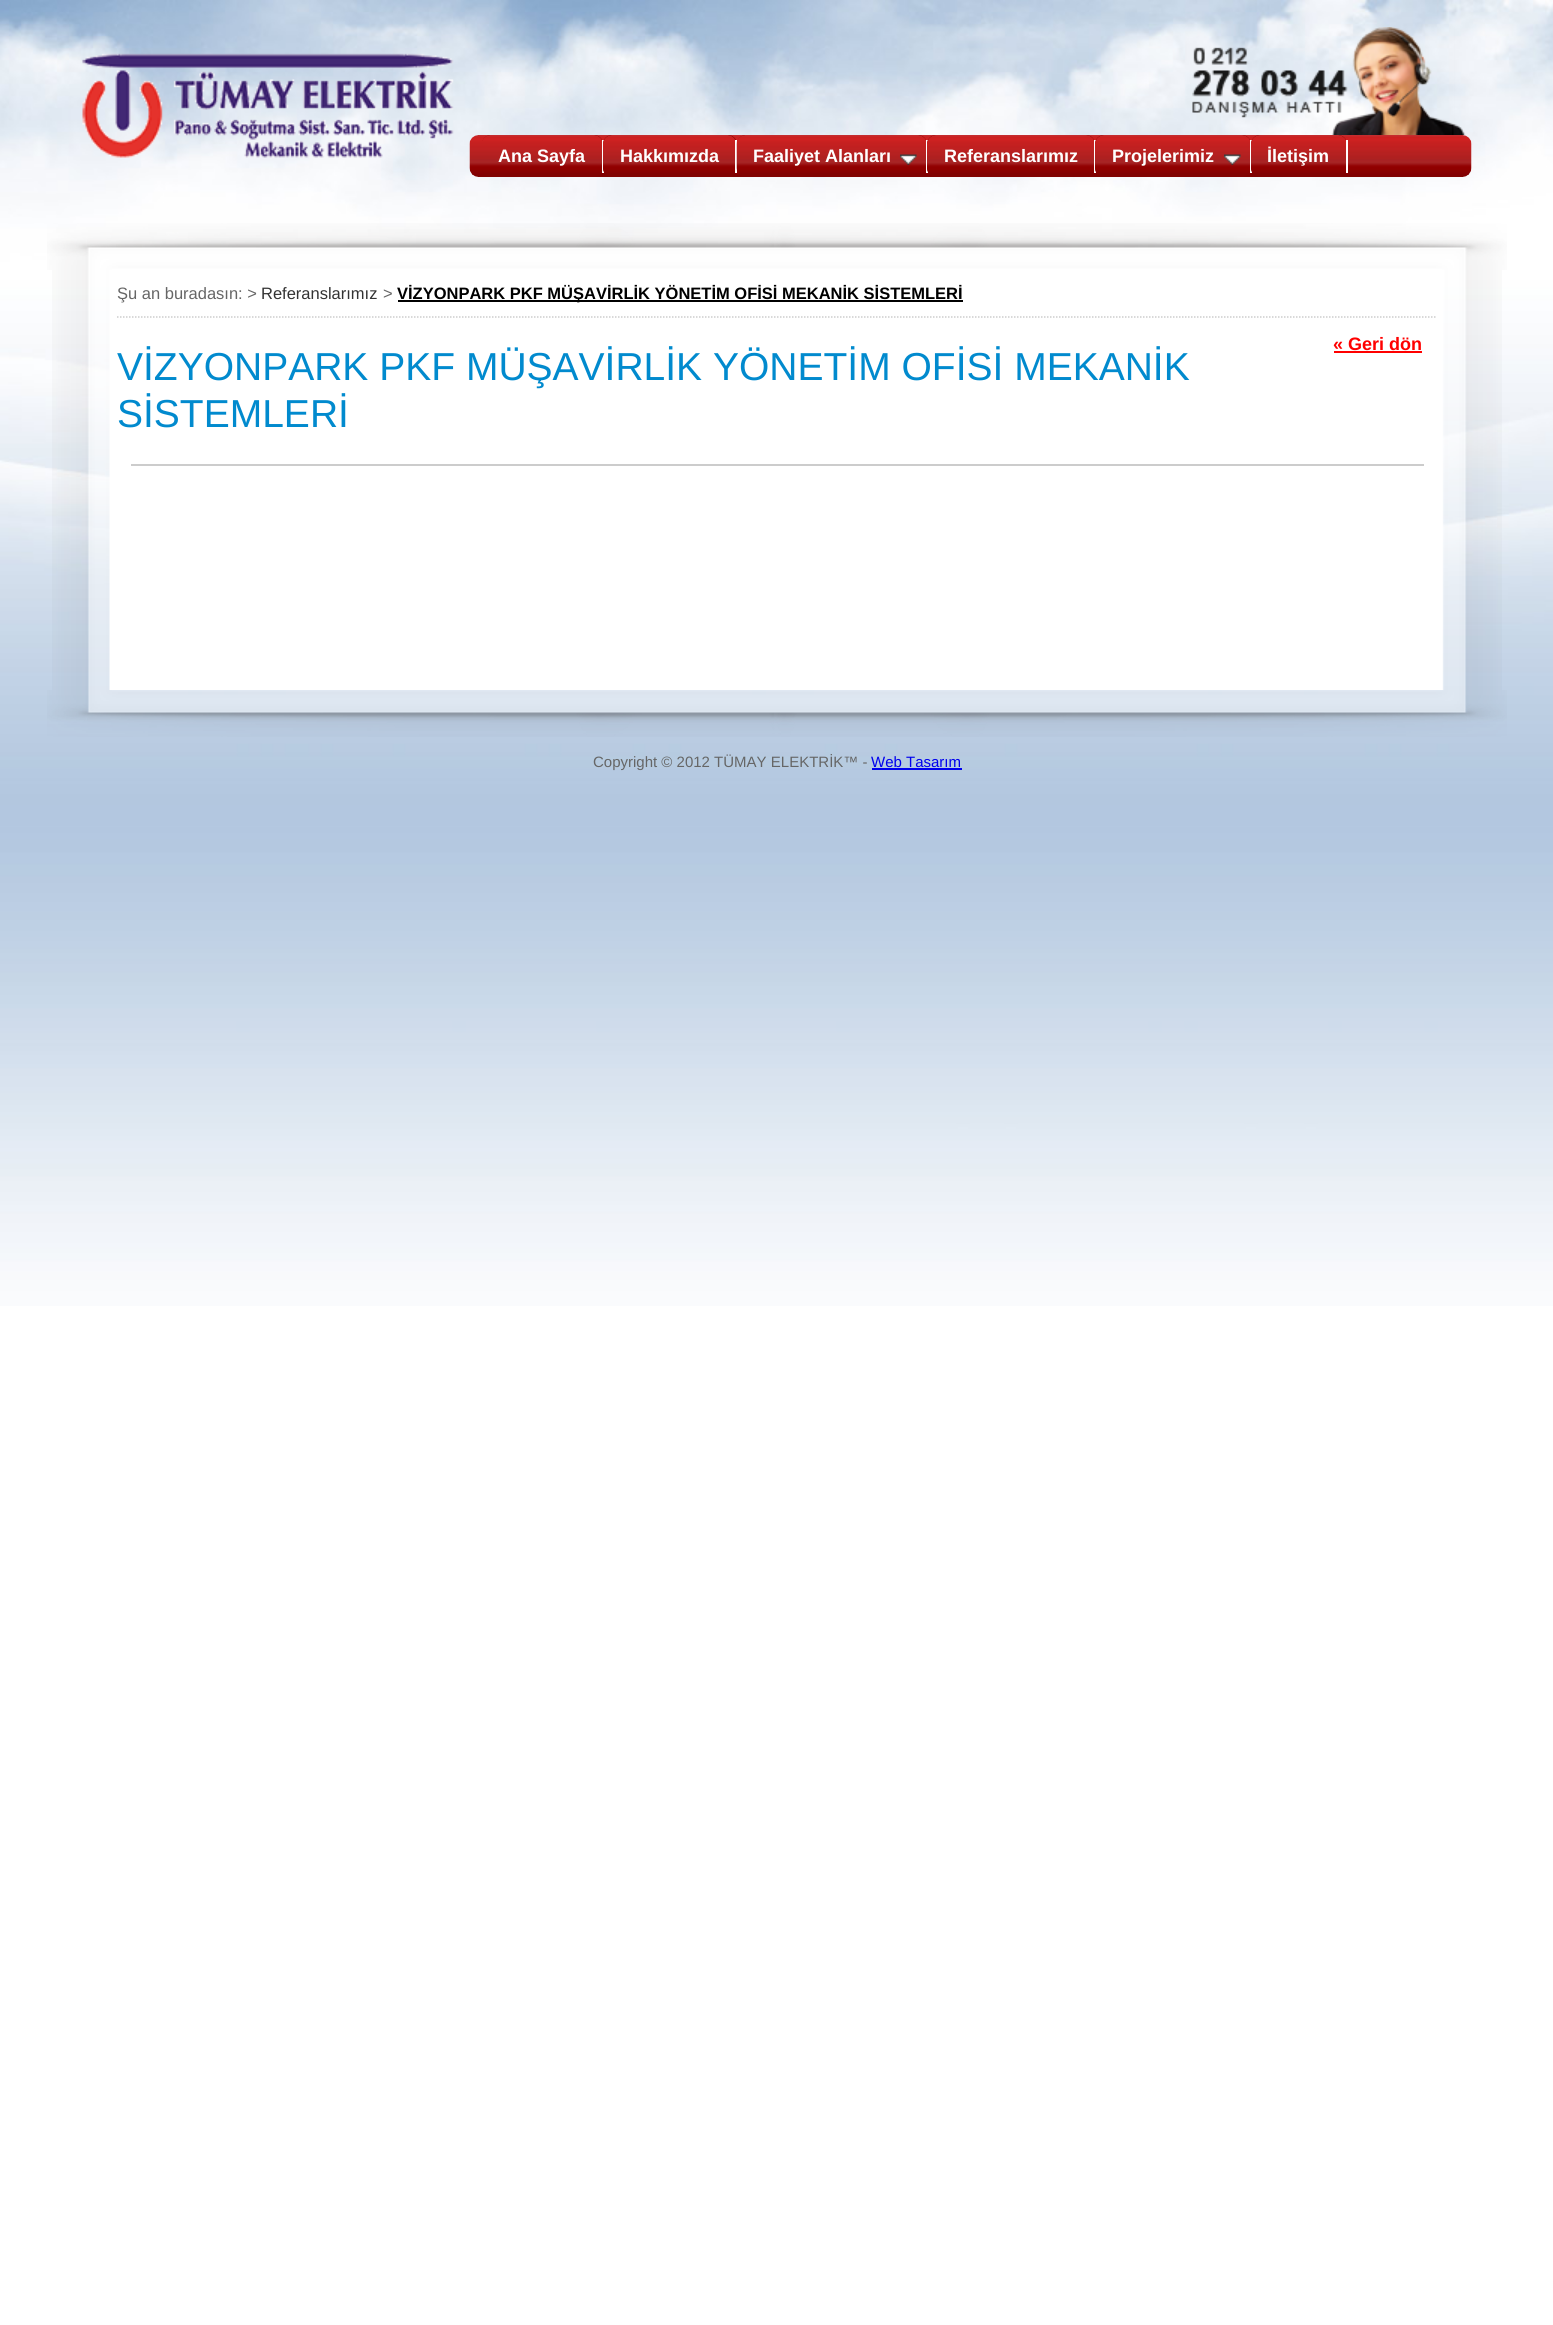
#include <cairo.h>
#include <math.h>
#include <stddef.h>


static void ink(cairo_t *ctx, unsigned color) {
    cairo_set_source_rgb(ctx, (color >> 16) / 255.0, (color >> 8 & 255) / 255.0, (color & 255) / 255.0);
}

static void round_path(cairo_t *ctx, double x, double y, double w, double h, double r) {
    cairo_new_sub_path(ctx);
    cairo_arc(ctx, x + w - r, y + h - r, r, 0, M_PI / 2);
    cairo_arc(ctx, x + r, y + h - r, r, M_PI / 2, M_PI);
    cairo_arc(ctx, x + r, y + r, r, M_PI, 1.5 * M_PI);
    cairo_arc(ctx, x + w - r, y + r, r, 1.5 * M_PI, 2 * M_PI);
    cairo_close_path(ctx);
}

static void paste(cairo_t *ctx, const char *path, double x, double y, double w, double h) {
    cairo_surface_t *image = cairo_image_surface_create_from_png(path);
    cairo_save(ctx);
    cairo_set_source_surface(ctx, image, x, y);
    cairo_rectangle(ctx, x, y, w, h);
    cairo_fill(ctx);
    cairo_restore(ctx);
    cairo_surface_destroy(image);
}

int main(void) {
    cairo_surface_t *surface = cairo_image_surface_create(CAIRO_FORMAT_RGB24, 1553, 2325);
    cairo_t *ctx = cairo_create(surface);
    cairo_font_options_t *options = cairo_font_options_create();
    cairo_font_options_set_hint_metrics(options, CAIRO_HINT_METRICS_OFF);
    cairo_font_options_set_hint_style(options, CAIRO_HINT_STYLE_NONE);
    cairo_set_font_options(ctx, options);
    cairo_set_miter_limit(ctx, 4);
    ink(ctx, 0xFFFFFF);
    cairo_paint(ctx);
    paste(ctx, "media/1.png", 0, 0, 1553, 1306);
    paste(ctx, "media/2.png", 82, 53, 372, 105);
    paste(ctx, "media/3.png", 1192, 27, 274, 108);
    paste(ctx, "media/4.png", 469, 135, 1003, 42);
    ink(ctx, 0x810302);
    round_path(ctx, 482, 135, 121, 42, 9);
    cairo_fill(ctx);
    paste(ctx, "media/5.png", 482, 135, 120, 38);
    ink(ctx, 0xFFFFFF);
    cairo_rectangle(ctx, 602, 140, 2, 33);
    cairo_fill(ctx);
    cairo_select_font_face(ctx, "Liberation Sans", CAIRO_FONT_SLANT_NORMAL, CAIRO_FONT_WEIGHT_BOLD);
    cairo_set_font_size(ctx, 18);
    cairo_move_to(ctx, 498, 162);
    cairo_show_text(ctx, "Ana Sayfa");
    ink(ctx, 0x810302);
    round_path(ctx, 603, 135, 134, 42, 9);
    cairo_fill(ctx);
    paste(ctx, "media/6.png", 603, 135, 133, 38);
    ink(ctx, 0xFFFFFF);
    cairo_rectangle(ctx, 735, 140, 2, 33);
    cairo_fill(ctx);
    cairo_move_to(ctx, 620, 162);
    cairo_show_text(ctx, "Hakkımızda");
    ink(ctx, 0x810302);
    round_path(ctx, 737, 135, 190, 42, 9);
    cairo_fill(ctx);
    paste(ctx, "media/7.png", 736, 135, 190, 38);
    ink(ctx, 0xFFFFFF);
    cairo_rectangle(ctx, 926, 140, 2, 33);
    cairo_fill(ctx);
    cairo_move_to(ctx, 753, 162);
    cairo_show_text(ctx, "Faaliyet Alanları");
    paste(ctx, "media/8.png", 900, 154, 17, 11);
    ink(ctx, 0x810302);
    round_path(ctx, 927, 135, 168, 42, 9);
    cairo_fill(ctx);
    paste(ctx, "media/9.png", 927, 135, 167, 38);
    ink(ctx, 0xFFFFFF);
    cairo_rectangle(ctx, 1094, 140, 2, 33);
    cairo_fill(ctx);
    cairo_move_to(ctx, 944, 162);
    cairo_show_text(ctx, "Referanslarımız");
    ink(ctx, 0x810302);
    round_path(ctx, 1095, 135, 156, 42, 9);
    cairo_fill(ctx);
    paste(ctx, "media/10.png", 1095, 135, 155, 38);
    ink(ctx, 0xFFFFFF);
    cairo_rectangle(ctx, 1250, 140, 2, 33);
    cairo_fill(ctx);
    cairo_move_to(ctx, 1112, 162);
    cairo_show_text(ctx, "Projelerimiz");
    paste(ctx, "media/11.png", 1224, 154, 17, 11);
    ink(ctx, 0x810302);
    round_path(ctx, 1251, 135, 96, 42, 9);
    cairo_fill(ctx);
    paste(ctx, "media/12.png", 1251, 135, 95, 38);
    ink(ctx, 0xFFFFFF);
    cairo_rectangle(ctx, 1346, 140, 2, 33);
    cairo_fill(ctx);
    cairo_move_to(ctx, 1267, 162);
    cairo_show_text(ctx, "İletişim");
    paste(ctx, "media/13.png", 47, 223, 1460, 47);
    paste(ctx, "media/14.png", 52, 270, 1450, 420);
    cairo_new_path(ctx);
    cairo_move_to(ctx, 117, 317);
    cairo_line_to(ctx, 1437, 317);
    ink(ctx, 0xCCCCCC);
    cairo_set_line_width(ctx, 1.5);
    cairo_set_dash(ctx, (double[]){1.5, 1.5}, 2, 0);
    cairo_stroke(ctx);
    cairo_select_font_face(ctx, "Liberation Sans", CAIRO_FONT_SLANT_NORMAL, CAIRO_FONT_WEIGHT_NORMAL);
    cairo_set_font_size(ctx, 16.5);
    ink(ctx, 0x666666);
    cairo_move_to(ctx, 117, 299);
    cairo_show_text(ctx, "Şu an buradasın: >");
    ink(ctx, 0x333333);
    cairo_move_to(ctx, 261, 299);
    cairo_show_text(ctx, "Referanslarımız");
    ink(ctx, 0x666666);
    cairo_move_to(ctx, 383, 299);
    cairo_show_text(ctx, ">");
    ink(ctx, 0x000000);
    cairo_rectangle(ctx, 398, 300, 565, 2);
    cairo_fill(ctx);
    cairo_select_font_face(ctx, "Liberation Sans", CAIRO_FONT_SLANT_NORMAL, CAIRO_FONT_WEIGHT_BOLD);
    cairo_move_to(ctx, 397, 299);
    cairo_show_text(ctx, "VİZYONPARK PKF MÜŞAVİRLİK YÖNETİM OFİSİ MEKANİK SİSTEMLERİ");
    cairo_set_font_size(ctx, 18);
    ink(ctx, 0xFF0000);
    cairo_move_to(ctx, 1333, 350);
    cairo_show_text(ctx, "« Geri dön");
    cairo_rectangle(ctx, 1334, 351, 88, 2);
    cairo_fill(ctx);
    cairo_select_font_face(ctx, "Liberation Sans", CAIRO_FONT_SLANT_NORMAL, CAIRO_FONT_WEIGHT_NORMAL);
    cairo_set_font_size(ctx, 39);
    ink(ctx, 0x018ACE);
    cairo_move_to(ctx, 117, 380);
    cairo_show_text(ctx, "VİZYONPARK PKF MÜŞAVİRLİK YÖNETİM OFİSİ MEKANİK");
    cairo_move_to(ctx, 117, 427);
    cairo_show_text(ctx, "SİSTEMLERİ");
    ink(ctx, 0xCCCCCC);
    cairo_rectangle(ctx, 131, 464, 1293, 2);
    cairo_fill(ctx);
    paste(ctx, "media/15.png", 47, 690, 1460, 47);
    cairo_set_font_size(ctx, 15);
    ink(ctx, 0x666666);
    cairo_move_to(ctx, 593, 767);
    cairo_show_text(ctx, "Copyright © 2012 TÜMAY ELEKTRİK™ -");
    ink(ctx, 0x0000EE);
    cairo_move_to(ctx, 871, 767);
    cairo_show_text(ctx, "Web Tasarım");
    cairo_rectangle(ctx, 872, 768, 90, 2);
    cairo_fill(ctx);
    cairo_surface_write_to_png(surface, "image.png");
    cairo_font_options_destroy(options);
    cairo_destroy(ctx);
    cairo_surface_destroy(surface);
    return 0;
}
